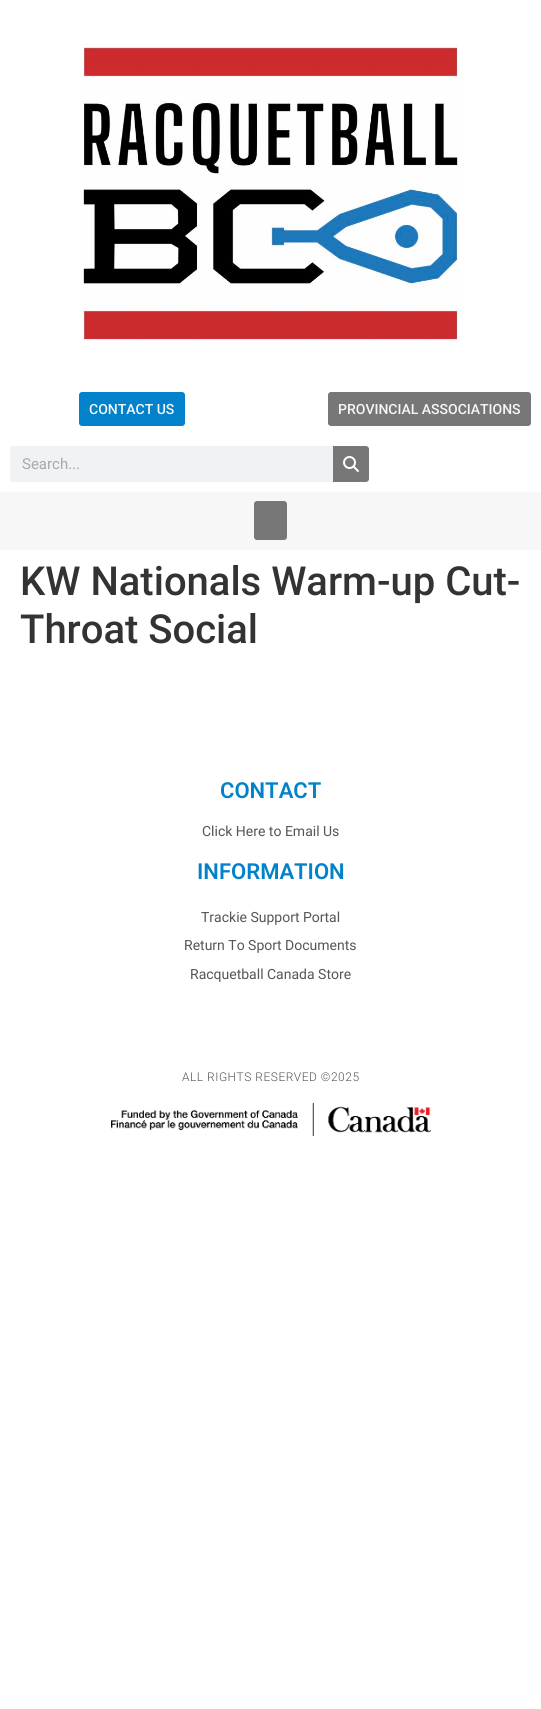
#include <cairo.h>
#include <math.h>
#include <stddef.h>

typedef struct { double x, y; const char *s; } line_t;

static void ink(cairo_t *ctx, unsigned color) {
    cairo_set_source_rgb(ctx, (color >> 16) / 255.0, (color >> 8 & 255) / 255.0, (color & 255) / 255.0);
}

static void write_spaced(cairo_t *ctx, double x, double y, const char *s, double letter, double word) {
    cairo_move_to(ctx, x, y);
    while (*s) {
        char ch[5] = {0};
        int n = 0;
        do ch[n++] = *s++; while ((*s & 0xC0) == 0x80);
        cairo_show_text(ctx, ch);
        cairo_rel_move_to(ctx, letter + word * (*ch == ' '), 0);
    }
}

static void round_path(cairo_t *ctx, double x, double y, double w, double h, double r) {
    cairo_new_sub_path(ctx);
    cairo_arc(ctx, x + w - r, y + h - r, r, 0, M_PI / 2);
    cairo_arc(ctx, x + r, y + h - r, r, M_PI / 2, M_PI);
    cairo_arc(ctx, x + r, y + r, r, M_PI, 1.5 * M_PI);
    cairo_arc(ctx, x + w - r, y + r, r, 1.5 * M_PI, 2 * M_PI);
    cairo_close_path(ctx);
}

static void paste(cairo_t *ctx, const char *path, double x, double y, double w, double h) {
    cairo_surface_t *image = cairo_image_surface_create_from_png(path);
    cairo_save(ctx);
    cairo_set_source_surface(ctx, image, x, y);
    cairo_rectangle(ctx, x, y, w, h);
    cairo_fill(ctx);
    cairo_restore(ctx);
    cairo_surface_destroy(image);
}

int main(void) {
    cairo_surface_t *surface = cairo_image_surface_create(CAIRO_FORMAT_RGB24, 541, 1709);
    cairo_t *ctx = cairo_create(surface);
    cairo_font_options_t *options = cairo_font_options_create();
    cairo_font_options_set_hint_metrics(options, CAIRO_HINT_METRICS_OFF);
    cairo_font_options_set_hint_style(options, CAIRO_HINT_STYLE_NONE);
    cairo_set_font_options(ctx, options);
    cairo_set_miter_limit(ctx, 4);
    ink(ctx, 0xFFFFFF);
    cairo_paint(ctx);
    paste(ctx, "media/1.png", 83, 44, 375, 301);
    ink(ctx, 0x0182CA);
    round_path(ctx, 79, 392, 106, 34, 3);
    cairo_fill(ctx);
    cairo_select_font_face(ctx, "Roboto Medium", CAIRO_FONT_SLANT_NORMAL, CAIRO_FONT_WEIGHT_NORMAL);
    cairo_set_font_size(ctx, 14);
    ink(ctx, 0xF7F7F7);
    cairo_move_to(ctx, 89, 414);
    cairo_show_text(ctx, "CONTACT US");
    ink(ctx, 0x777777);
    round_path(ctx, 328, 392, 203, 34, 3);
    cairo_fill(ctx);
    ink(ctx, 0xF7F7F7);
    cairo_move_to(ctx, 338, 414);
    cairo_show_text(ctx, "PROVINCIAL ASSOCIATIONS");
    ink(ctx, 0xF1F2F3);
    round_path(ctx, 10, 446, 359, 36, 3);
    cairo_fill(ctx);
    cairo_select_font_face(ctx, "Roboto", CAIRO_FONT_SLANT_NORMAL, CAIRO_FONT_WEIGHT_NORMAL);
    cairo_set_font_size(ctx, 15);
    ink(ctx, 0xA8A8A9);
    cairo_move_to(ctx, 22, 469);
    cairo_show_text(ctx, "Search...");
    ink(ctx, 0x777777);
    cairo_new_path(ctx);
    cairo_move_to(ctx, 333, 446);
    cairo_line_to(ctx, 366, 446);
    cairo_curve_to(ctx, 367.5, 446, 369, 447.5, 369, 449);
    cairo_line_to(ctx, 369, 479);
    cairo_curve_to(ctx, 369, 480.5, 367.5, 482, 366, 482);
    cairo_line_to(ctx, 333, 482);
    cairo_close_path(ctx);
    cairo_fill(ctx);
    paste(ctx, "media/2.png", 343, 456, 16, 16);
    ink(ctx, 0xF7F7F7);
    cairo_rectangle(ctx, 0, 492, 541, 58);
    cairo_fill(ctx);
    ink(ctx, 0x777777);
    round_path(ctx, 254, 501, 33, 39, 3);
    cairo_fill(ctx);
    cairo_select_font_face(ctx, "Roboto Medium", CAIRO_FONT_SLANT_NORMAL, CAIRO_FONT_WEIGHT_NORMAL);
    cairo_set_font_size(ctx, 40);
    ink(ctx, 0x333333);
    cairo_move_to(ctx, 20, 595);
    cairo_show_text(ctx, "KW Nationals Warm-up Cut-");
    cairo_move_to(ctx, 20, 643);
    cairo_show_text(ctx, "Throat Social");
    cairo_select_font_face(ctx, "Roboto SemiBold", CAIRO_FONT_SLANT_NORMAL, CAIRO_FONT_WEIGHT_NORMAL);
    cairo_set_font_size(ctx, 22);
    ink(ctx, 0x0182CA);
    cairo_move_to(ctx, 220, 798);
    cairo_show_text(ctx, "CONTACT");
    cairo_select_font_face(ctx, "Roboto", CAIRO_FONT_SLANT_NORMAL, CAIRO_FONT_WEIGHT_NORMAL);
    cairo_set_font_size(ctx, 14);
    ink(ctx, 0x555555);
    cairo_move_to(ctx, 202, 836);
    cairo_show_text(ctx, "Click Here to Email Us");
    cairo_select_font_face(ctx, "Roboto SemiBold", CAIRO_FONT_SLANT_NORMAL, CAIRO_FONT_WEIGHT_NORMAL);
    cairo_set_font_size(ctx, 22);
    ink(ctx, 0x0182CA);
    cairo_move_to(ctx, 197, 879);
    cairo_show_text(ctx, "INFORMATION");
    cairo_select_font_face(ctx, "Roboto", CAIRO_FONT_SLANT_NORMAL, CAIRO_FONT_WEIGHT_NORMAL);
    cairo_set_font_size(ctx, 14);
    ink(ctx, 0x555555);
    {
        static const line_t items[] = {
            {201, 922, "Trackie Support Portal"},
            {184, 950, "Return To Sport Documents"},
            {190, 979, "Racquetball Canada Store"},
        };
        for (size_t i = 0; i < sizeof items / sizeof *items; i++) {
            cairo_move_to(ctx, items[i].x, items[i].y);
            cairo_show_text(ctx, items[i].s);
        }
    }
    cairo_select_font_face(ctx, "Roboto Light", CAIRO_FONT_SLANT_NORMAL, CAIRO_FONT_WEIGHT_NORMAL);
    cairo_set_font_size(ctx, 12);
    write_spaced(ctx, 182, 1081, "ALL RIGHTS RESERVED ©2025", 0.5, 0);
    paste(ctx, "media/3.png", 111, 1103, 320, 33);
    cairo_surface_write_to_png(surface, "image.png");
    cairo_font_options_destroy(options);
    cairo_destroy(ctx);
    cairo_surface_destroy(surface);
    return 0;
}
